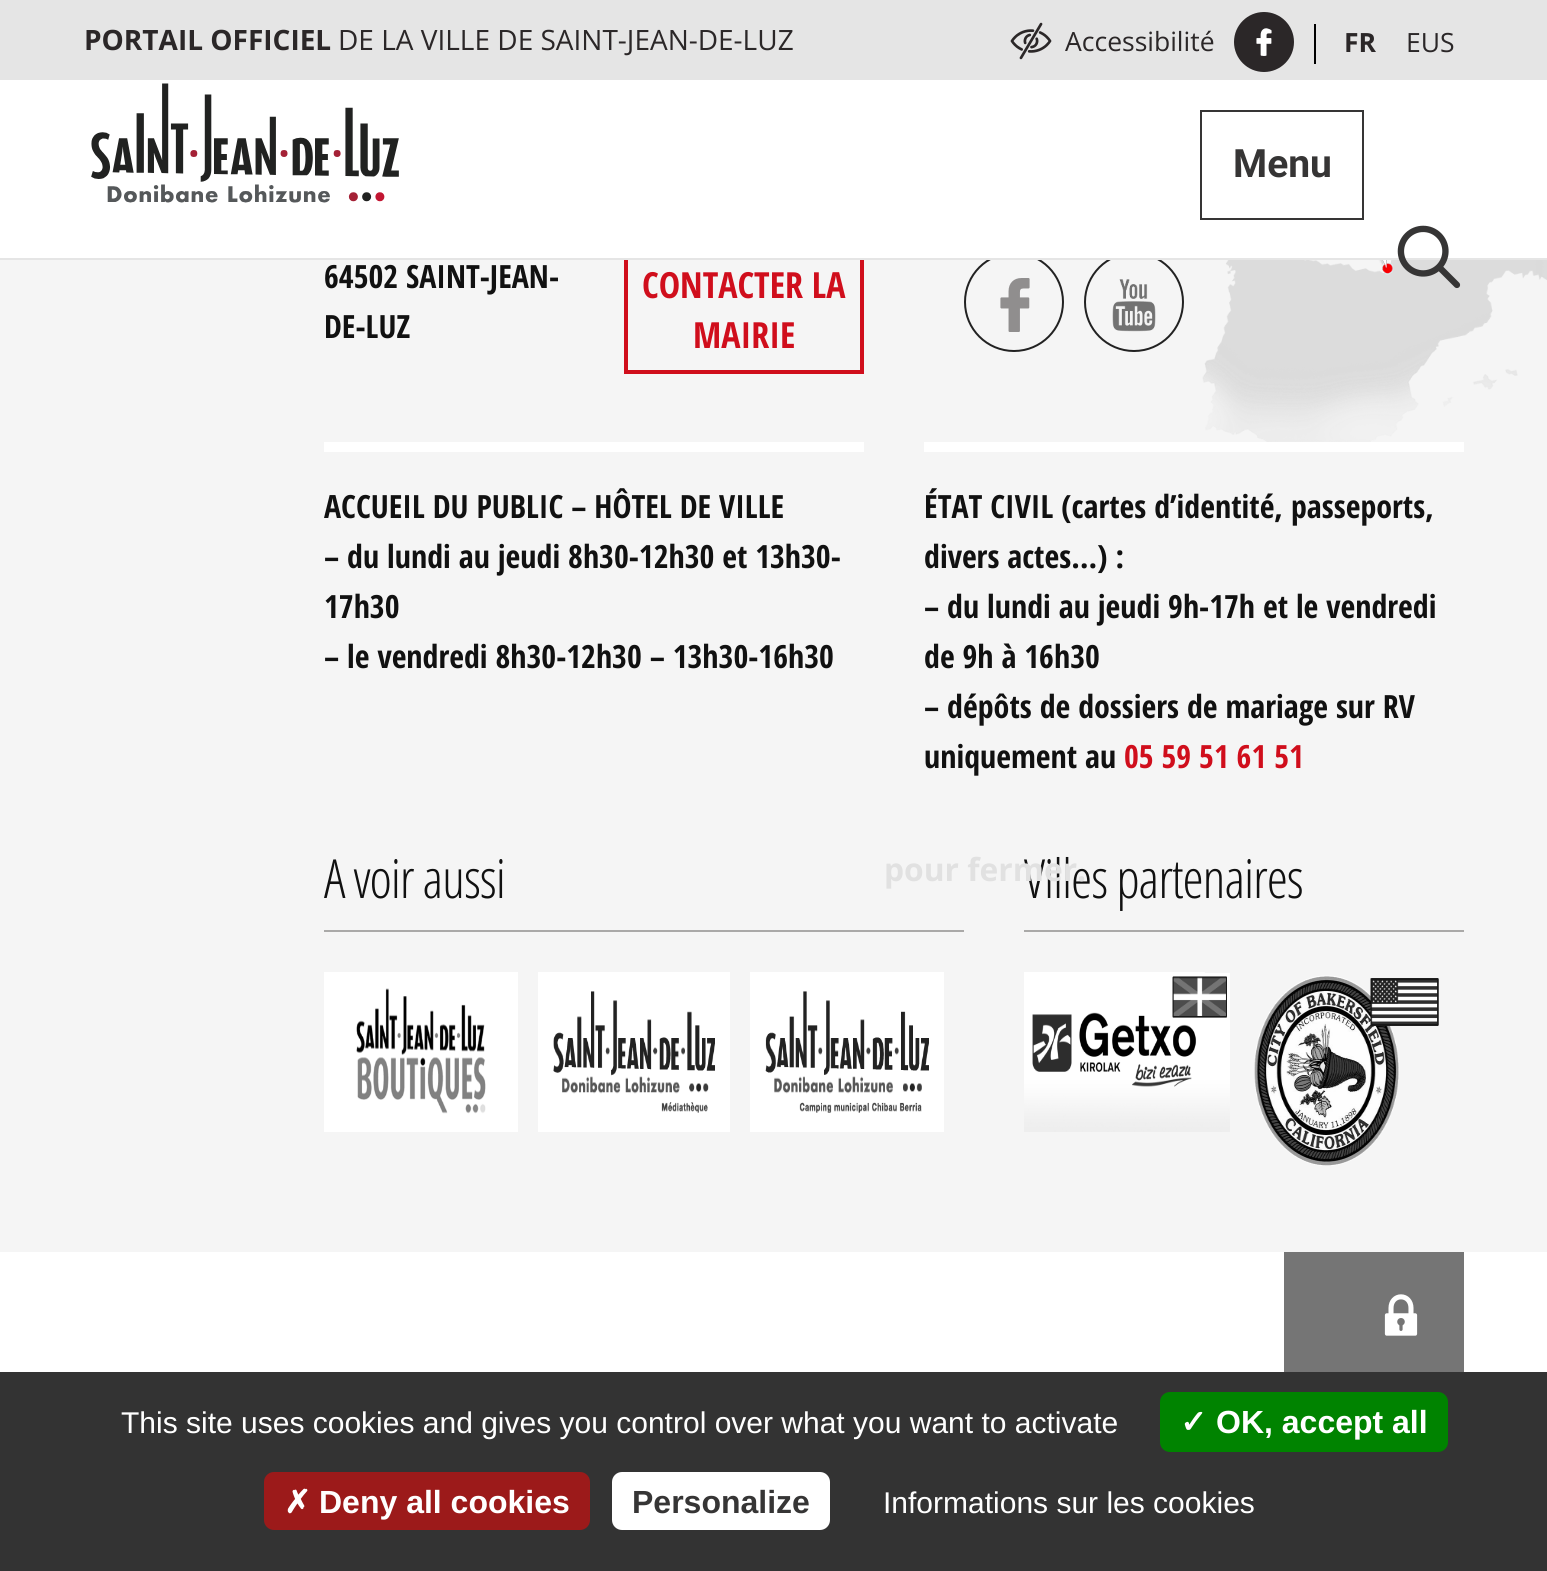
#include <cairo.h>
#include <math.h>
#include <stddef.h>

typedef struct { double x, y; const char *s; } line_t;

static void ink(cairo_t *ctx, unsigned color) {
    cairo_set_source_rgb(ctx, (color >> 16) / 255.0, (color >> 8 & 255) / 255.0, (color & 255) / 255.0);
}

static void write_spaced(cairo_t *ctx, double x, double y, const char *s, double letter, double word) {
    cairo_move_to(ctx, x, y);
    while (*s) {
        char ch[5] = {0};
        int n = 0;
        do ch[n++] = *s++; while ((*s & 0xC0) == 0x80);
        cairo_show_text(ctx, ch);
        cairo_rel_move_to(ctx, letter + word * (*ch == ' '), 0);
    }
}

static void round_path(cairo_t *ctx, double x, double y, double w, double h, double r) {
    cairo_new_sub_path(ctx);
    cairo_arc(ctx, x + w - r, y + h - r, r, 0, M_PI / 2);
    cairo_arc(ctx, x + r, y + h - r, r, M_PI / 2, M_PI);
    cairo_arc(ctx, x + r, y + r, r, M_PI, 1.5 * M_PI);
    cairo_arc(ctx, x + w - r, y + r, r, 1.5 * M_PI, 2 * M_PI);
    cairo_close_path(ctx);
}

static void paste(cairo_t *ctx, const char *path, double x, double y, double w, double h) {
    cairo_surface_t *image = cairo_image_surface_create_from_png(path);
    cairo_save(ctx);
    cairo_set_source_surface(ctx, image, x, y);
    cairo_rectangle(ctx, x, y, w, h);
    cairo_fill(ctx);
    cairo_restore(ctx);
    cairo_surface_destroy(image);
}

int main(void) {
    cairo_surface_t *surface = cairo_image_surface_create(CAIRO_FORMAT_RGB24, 1547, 1571);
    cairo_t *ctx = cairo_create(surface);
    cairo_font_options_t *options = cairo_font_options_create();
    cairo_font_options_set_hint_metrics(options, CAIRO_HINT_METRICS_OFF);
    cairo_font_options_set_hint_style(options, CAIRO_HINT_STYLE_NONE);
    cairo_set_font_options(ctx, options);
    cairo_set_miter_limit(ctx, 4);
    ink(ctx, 0xF5F5F5);
    cairo_paint(ctx);
    ink(ctx, 0xE5E5E5);
    cairo_rectangle(ctx, 0, 0, 1547, 80);
    cairo_fill(ctx);
    cairo_select_font_face(ctx, "Open Sans", CAIRO_FONT_SLANT_NORMAL, CAIRO_FONT_WEIGHT_BOLD);
    cairo_set_font_size(ctx, 28);
    ink(ctx, 0x2B2728);
    cairo_move_to(ctx, 84, 50);
    cairo_show_text(ctx, "PORTAIL OFFICIEL");
    cairo_select_font_face(ctx, "Open Sans", CAIRO_FONT_SLANT_NORMAL, CAIRO_FONT_WEIGHT_NORMAL);
    cairo_move_to(ctx, 338, 50);
    cairo_show_text(ctx, "DE LA VILLE DE SAINT-JEAN-DE-LUZ");
    paste(ctx, "media/1.png", 1010, 22, 42, 38);
    cairo_set_font_size(ctx, 26.5);
    cairo_move_to(ctx, 1065, 51);
    cairo_show_text(ctx, "Accessibilité");
    cairo_new_path(ctx);
    cairo_arc(ctx, 1264, 42, 30, 0, 2 * M_PI);
    cairo_fill(ctx);
    paste(ctx, "media/2.png", 1256, 28, 16, 28);
    ink(ctx, 0x000000);
    cairo_rectangle(ctx, 1314, 24, 2, 40);
    cairo_fill(ctx);
    cairo_select_font_face(ctx, "Open Sans", CAIRO_FONT_SLANT_NORMAL, CAIRO_FONT_WEIGHT_BOLD);
    ink(ctx, 0x2B2728);
    cairo_move_to(ctx, 1344, 52);
    cairo_show_text(ctx, "FR");
    cairo_select_font_face(ctx, "Open Sans", CAIRO_FONT_SLANT_NORMAL, CAIRO_FONT_WEIGHT_NORMAL);
    cairo_move_to(ctx, 1406, 52);
    cairo_show_text(ctx, "EUS");
    cairo_rectangle(ctx, 626, 248, 236, 124);
    ink(ctx, 0xD00E1C);
    cairo_set_line_width(ctx, 4);
    cairo_stroke(ctx);
    cairo_arc(ctx, 1014, 302, 49, 0, 2 * M_PI);
    ink(ctx, 0x222222);
    cairo_set_line_width(ctx, 2);
    cairo_stroke(ctx);
    cairo_arc(ctx, 1134, 302, 49, 0, 2 * M_PI);
    cairo_stroke(ctx);
    ink(ctx, 0xFFFFFF);
    cairo_rectangle(ctx, 0, 80, 1547, 178);
    cairo_fill(ctx);
    ink(ctx, 0xE5E5E5);
    cairo_rectangle(ctx, 0, 258, 1547, 2);
    cairo_fill(ctx);
    paste(ctx, "media/3.png", 91, 83, 308, 120);
    cairo_rectangle(ctx, 1201, 111, 162, 108);
    ink(ctx, 0x363535);
    cairo_stroke(ctx);
    cairo_select_font_face(ctx, "Roboto", CAIRO_FONT_SLANT_NORMAL, CAIRO_FONT_WEIGHT_BOLD);
    cairo_set_font_size(ctx, 39);
    cairo_move_to(ctx, 1233, 177);
    cairo_show_text(ctx, "Menu");
    paste(ctx, "media/7.png", 1202, 260, 345, 182);
    paste(ctx, "media/4.png", 1397, 225, 64, 64);
    cairo_select_font_face(ctx, "Open Sans Condensed", CAIRO_FONT_SLANT_NORMAL, CAIRO_FONT_WEIGHT_BOLD);
    cairo_set_font_size(ctx, 32);
    ink(ctx, 0x111111);
    cairo_move_to(ctx, 324, 288);
    cairo_show_text(ctx, "64502 SAINT-JEAN-");
    cairo_move_to(ctx, 324, 338);
    cairo_show_text(ctx, "DE-LUZ");
    cairo_set_font_size(ctx, 36);
    ink(ctx, 0xD00E1C);
    cairo_move_to(ctx, 642, 298);
    cairo_show_text(ctx, "CONTACTER LA");
    cairo_move_to(ctx, 693, 348);
    cairo_show_text(ctx, "MAIRIE");
    paste(ctx, "media/5.png", 1000, 278, 30, 54);
    paste(ctx, "media/6.png", 1112, 279, 44, 53);
    ink(ctx, 0xFFFFFF);
    cairo_rectangle(ctx, 324, 442, 540, 10);
    cairo_fill(ctx);
    cairo_set_font_size(ctx, 32);
    ink(ctx, 0x111111);
    {
        static const line_t items[] = {
            {324, 518, "ACCUEIL DU PUBLIC – HÔTEL DE VILLE"},
            {324, 568, "– du lundi au jeudi 8h30-12h30 et 13h30-"},
            {324, 618, "17h30"},
            {324, 668, "– le vendredi 8h30-12h30 – 13h30-16h30"},
        };
        for (size_t i = 0; i < sizeof items / sizeof *items; i++) {
            cairo_move_to(ctx, items[i].x, items[i].y);
            cairo_show_text(ctx, items[i].s);
        }
    }
    ink(ctx, 0xFFFFFF);
    cairo_rectangle(ctx, 924, 442, 540, 10);
    cairo_fill(ctx);
    ink(ctx, 0x111111);
    {
        static const line_t items[] = {
            {924, 518, "ÉTAT CIVIL (cartes d’identité, passeports,"},
            {924, 568, "divers actes…) :"},
            {924, 618, "– du lundi au jeudi 9h-17h et le vendredi"},
            {924, 668, "de 9h à 16h30"},
            {924, 718, "– dépôts de dossiers de mariage sur RV"},
            {924, 768, "uniquement au"},
        };
        for (size_t i = 0; i < sizeof items / sizeof *items; i++) {
            cairo_move_to(ctx, items[i].x, items[i].y);
            cairo_show_text(ctx, items[i].s);
        }
    }
    ink(ctx, 0xD00E1C);
    cairo_move_to(ctx, 1124, 768);
    cairo_show_text(ctx, "05 59 51 61 51");
    ink(ctx, 0xAAA9A8);
    cairo_rectangle(ctx, 324, 930, 640, 2);
    cairo_fill(ctx);
    cairo_select_font_face(ctx, "Open Sans Condensed Light", CAIRO_FONT_SLANT_NORMAL, CAIRO_FONT_WEIGHT_NORMAL);
    cairo_set_font_size(ctx, 54);
    ink(ctx, 0x111111);
    write_spaced(ctx, 324, 898, "A voir aussi", -1.1, 0);
    paste(ctx, "media/8.png", 324, 972, 194, 160);
    paste(ctx, "media/9.png", 538, 972, 192, 160);
    paste(ctx, "media/10.png", 750, 972, 194, 160);
    ink(ctx, 0xAAA9A8);
    cairo_rectangle(ctx, 1024, 930, 440, 2);
    cairo_fill(ctx);
    ink(ctx, 0x111111);
    write_spaced(ctx, 1024, 898, "Villes partenaires", -1.1, 0);
    paste(ctx, "media/11.png", 1024, 972, 206, 160);
    paste(ctx, "media/12.png", 1254, 975, 185, 191);
    ink(ctx, 0xFFFFFF);
    cairo_rectangle(ctx, 0, 1252, 1547, 120);
    cairo_fill(ctx);
    ink(ctx, 0x757575);
    cairo_rectangle(ctx, 1284, 1252, 180, 120);
    cairo_fill(ctx);
    paste(ctx, "media/13.png", 1384, 1294, 34, 42);
    cairo_select_font_face(ctx, "Open Sans", CAIRO_FONT_SLANT_NORMAL, CAIRO_FONT_WEIGHT_BOLD);
    cairo_set_font_size(ctx, 31.75);
    ink(ctx, 0xE1E1E1);
    cairo_move_to(ctx, 884, 881);
    cairo_show_text(ctx, "pour fermer.");
    ink(ctx, 0x333333);
    cairo_rectangle(ctx, 0, 1372, 1547, 199);
    cairo_fill(ctx);
    cairo_select_font_face(ctx, "Liberation Sans", CAIRO_FONT_SLANT_NORMAL, CAIRO_FONT_WEIGHT_NORMAL);
    cairo_set_font_size(ctx, 30);
    ink(ctx, 0xFFFFFF);
    cairo_move_to(ctx, 121, 1433);
    cairo_show_text(ctx, "This site uses cookies and gives you control over what you want to activate");
    ink(ctx, 0x008300);
    round_path(ctx, 1160, 1392, 288, 60, 10);
    cairo_fill(ctx);
    cairo_select_font_face(ctx, "DejaVu Sans", CAIRO_FONT_SLANT_NORMAL, CAIRO_FONT_WEIGHT_BOLD);
    cairo_set_font_size(ctx, 32);
    ink(ctx, 0xFFFFFF);
    cairo_move_to(ctx, 1180, 1433);
    cairo_show_text(ctx, "✓");
    cairo_select_font_face(ctx, "Liberation Sans", CAIRO_FONT_SLANT_NORMAL, CAIRO_FONT_WEIGHT_BOLD);
    cairo_move_to(ctx, 1216, 1433);
    cairo_show_text(ctx, "OK, accept all");
    ink(ctx, 0x9C1A1A);
    round_path(ctx, 264, 1472, 326, 58, 10);
    cairo_fill(ctx);
    cairo_select_font_face(ctx, "DejaVu Sans", CAIRO_FONT_SLANT_NORMAL, CAIRO_FONT_WEIGHT_BOLD);
    ink(ctx, 0xFFFFFF);
    cairo_move_to(ctx, 284, 1513);
    cairo_show_text(ctx, "✗");
    cairo_select_font_face(ctx, "Liberation Sans", CAIRO_FONT_SLANT_NORMAL, CAIRO_FONT_WEIGHT_BOLD);
    cairo_move_to(ctx, 319, 1513);
    cairo_show_text(ctx, "Deny all cookies");
    round_path(ctx, 612, 1472, 218, 58, 10);
    cairo_fill(ctx);
    ink(ctx, 0x363535);
    cairo_move_to(ctx, 632, 1513);
    cairo_show_text(ctx, "Personalize");
    cairo_select_font_face(ctx, "Liberation Sans", CAIRO_FONT_SLANT_NORMAL, CAIRO_FONT_WEIGHT_NORMAL);
    cairo_set_font_size(ctx, 30);
    ink(ctx, 0xFFFFFF);
    cairo_move_to(ctx, 883, 1513);
    cairo_show_text(ctx, "Informations sur les cookies");
    cairo_surface_write_to_png(surface, "image.png");
    cairo_font_options_destroy(options);
    cairo_destroy(ctx);
    cairo_surface_destroy(surface);
    return 0;
}
